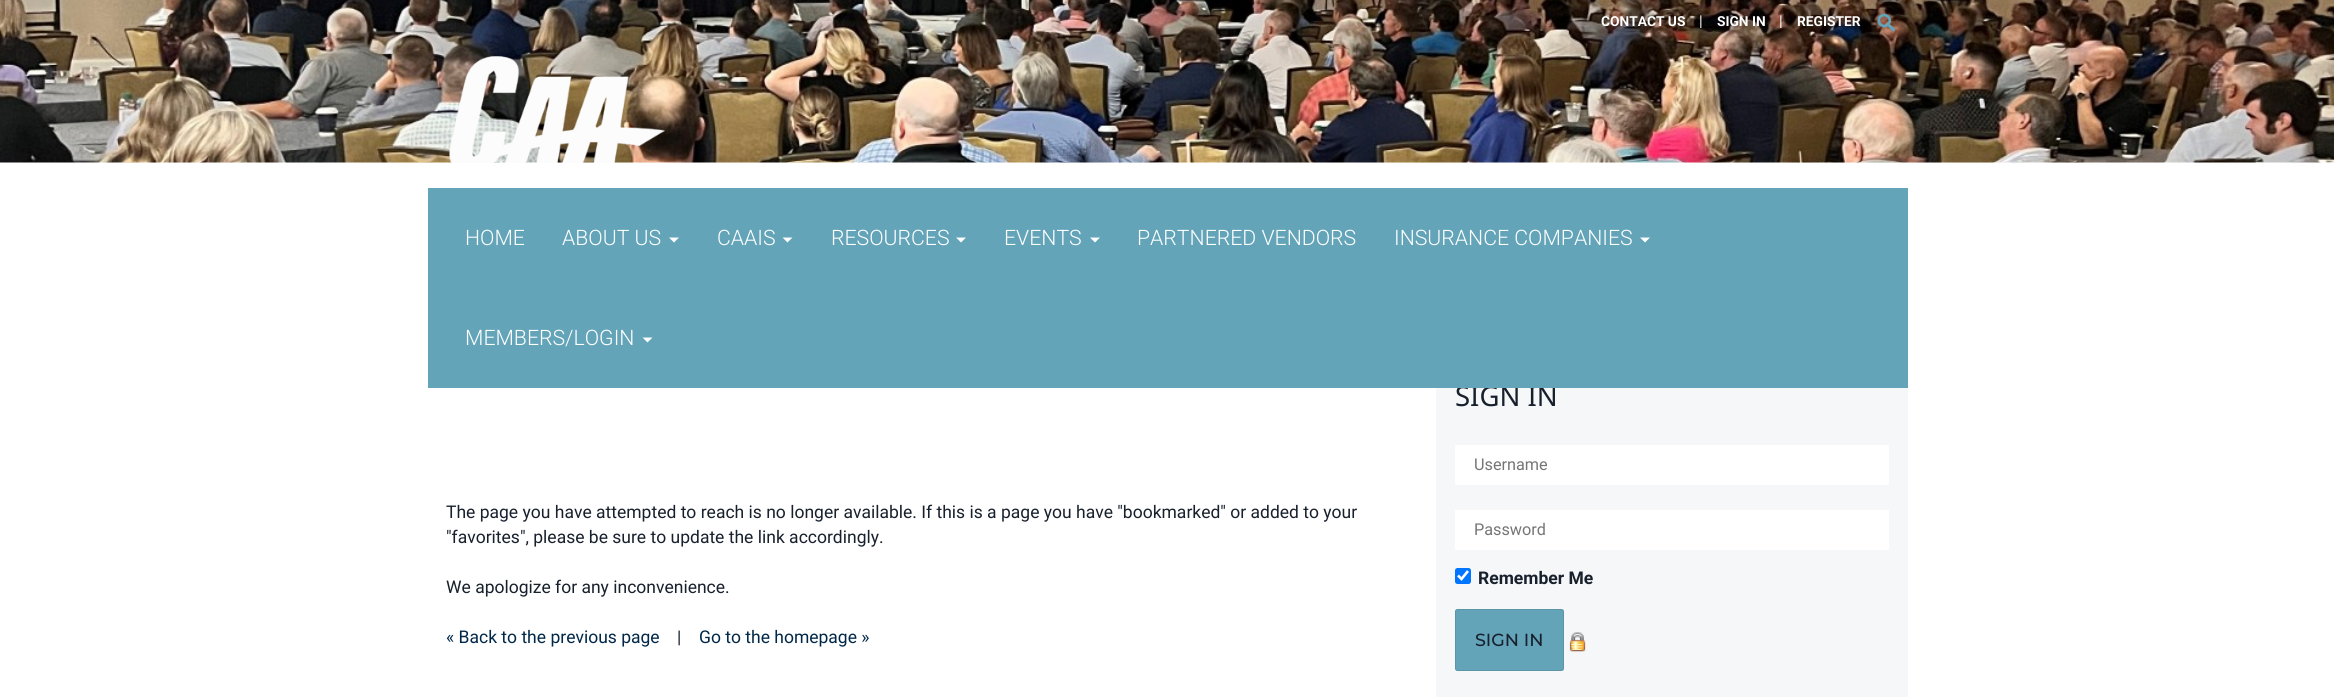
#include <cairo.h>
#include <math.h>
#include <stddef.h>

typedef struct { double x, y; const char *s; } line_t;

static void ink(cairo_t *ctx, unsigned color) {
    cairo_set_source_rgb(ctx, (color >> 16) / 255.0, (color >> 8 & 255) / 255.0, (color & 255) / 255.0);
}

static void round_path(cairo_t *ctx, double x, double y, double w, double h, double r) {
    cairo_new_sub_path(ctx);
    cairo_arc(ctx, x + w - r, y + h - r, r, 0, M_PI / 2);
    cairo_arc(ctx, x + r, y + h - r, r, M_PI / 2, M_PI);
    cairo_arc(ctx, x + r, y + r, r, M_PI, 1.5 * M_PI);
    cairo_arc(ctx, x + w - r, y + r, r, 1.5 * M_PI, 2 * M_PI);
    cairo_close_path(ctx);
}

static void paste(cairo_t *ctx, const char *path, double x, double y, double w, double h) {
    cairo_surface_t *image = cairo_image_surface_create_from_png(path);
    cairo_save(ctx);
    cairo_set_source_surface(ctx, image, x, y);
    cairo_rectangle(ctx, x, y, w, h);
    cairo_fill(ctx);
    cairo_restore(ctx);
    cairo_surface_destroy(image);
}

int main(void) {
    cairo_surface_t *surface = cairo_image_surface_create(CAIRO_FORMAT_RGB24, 2334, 697);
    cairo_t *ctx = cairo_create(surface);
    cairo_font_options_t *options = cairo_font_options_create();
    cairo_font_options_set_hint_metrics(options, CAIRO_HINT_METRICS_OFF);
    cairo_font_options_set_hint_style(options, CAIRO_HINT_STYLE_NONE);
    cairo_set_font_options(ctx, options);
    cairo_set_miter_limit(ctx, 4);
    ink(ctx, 0xFFFFFF);
    cairo_paint(ctx);
    paste(ctx, "media/3.png", 0, 0, 2334, 163);
    cairo_select_font_face(ctx, "Roboto", CAIRO_FONT_SLANT_NORMAL, CAIRO_FONT_WEIGHT_BOLD);
    cairo_set_font_size(ctx, 13.75);
    ink(ctx, 0xFFFFFF);
    cairo_move_to(ctx, 1601, 26);
    cairo_show_text(ctx, "CONTACT US");
    cairo_select_font_face(ctx, "Roboto", CAIRO_FONT_SLANT_NORMAL, CAIRO_FONT_WEIGHT_NORMAL);
    cairo_set_font_size(ctx, 15);
    cairo_move_to(ctx, 1699, 26);
    cairo_show_text(ctx, "|");
    cairo_select_font_face(ctx, "Roboto", CAIRO_FONT_SLANT_NORMAL, CAIRO_FONT_WEIGHT_BOLD);
    cairo_set_font_size(ctx, 13.75);
    cairo_move_to(ctx, 1717, 26);
    cairo_show_text(ctx, "SIGN IN");
    cairo_select_font_face(ctx, "Roboto", CAIRO_FONT_SLANT_NORMAL, CAIRO_FONT_WEIGHT_NORMAL);
    cairo_set_font_size(ctx, 15);
    cairo_move_to(ctx, 1779, 26);
    cairo_show_text(ctx, "|");
    cairo_select_font_face(ctx, "Roboto", CAIRO_FONT_SLANT_NORMAL, CAIRO_FONT_WEIGHT_BOLD);
    cairo_set_font_size(ctx, 13.75);
    cairo_move_to(ctx, 1797, 26);
    cairo_show_text(ctx, "REGISTER");
    paste(ctx, "media/1.png", 1877, 13, 18, 19);
    paste(ctx, "media/2.png", 449, 56, 216, 107);
    ink(ctx, 0xF5F7F9);
    cairo_rectangle(ctx, 1436, 388, 472, 309);
    cairo_fill(ctx);
    cairo_select_font_face(ctx, "Noto Sans", CAIRO_FONT_SLANT_NORMAL, CAIRO_FONT_WEIGHT_NORMAL);
    cairo_set_font_size(ctx, 27.5);
    ink(ctx, 0x17202C);
    cairo_move_to(ctx, 1455, 406);
    cairo_show_text(ctx, "SIGN IN");
    ink(ctx, 0x63A4B9);
    cairo_rectangle(ctx, 428, 188, 1480, 200);
    cairo_fill(ctx);
    cairo_select_font_face(ctx, "Roboto Light", CAIRO_FONT_SLANT_NORMAL, CAIRO_FONT_WEIGHT_NORMAL);
    cairo_set_font_size(ctx, 21.25);
    ink(ctx, 0xFFFFFF);
    cairo_move_to(ctx, 465, 245);
    cairo_show_text(ctx, "HOME");
    cairo_move_to(ctx, 562, 245);
    cairo_show_text(ctx, "ABOUT US");
    cairo_new_path(ctx);
    cairo_move_to(ctx, 669, 237.5);
    cairo_line_to(ctx, 679, 237.5);
    cairo_line_to(ctx, 674, 242.5);
    cairo_close_path(ctx);
    cairo_fill(ctx);
    cairo_move_to(ctx, 717, 245);
    cairo_show_text(ctx, "CAAIS");
    cairo_new_path(ctx);
    cairo_move_to(ctx, 782.5, 237.5);
    cairo_line_to(ctx, 792.5, 237.5);
    cairo_line_to(ctx, 787.5, 242.5);
    cairo_close_path(ctx);
    cairo_fill(ctx);
    cairo_move_to(ctx, 831, 245);
    cairo_show_text(ctx, "RESOURCES");
    cairo_new_path(ctx);
    cairo_move_to(ctx, 956, 237.5);
    cairo_line_to(ctx, 966, 237.5);
    cairo_line_to(ctx, 961, 242.5);
    cairo_close_path(ctx);
    cairo_fill(ctx);
    cairo_move_to(ctx, 1004, 245);
    cairo_show_text(ctx, "EVENTS");
    cairo_new_path(ctx);
    cairo_move_to(ctx, 1090, 237.5);
    cairo_line_to(ctx, 1100, 237.5);
    cairo_line_to(ctx, 1095, 242.5);
    cairo_close_path(ctx);
    cairo_fill(ctx);
    cairo_move_to(ctx, 1137, 245);
    cairo_show_text(ctx, "PARTNERED VENDORS");
    cairo_move_to(ctx, 1394, 245);
    cairo_show_text(ctx, "INSURANCE COMPANIES");
    cairo_new_path(ctx);
    cairo_move_to(ctx, 1640, 237.5);
    cairo_line_to(ctx, 1650, 237.5);
    cairo_line_to(ctx, 1645, 242.5);
    cairo_close_path(ctx);
    cairo_fill(ctx);
    cairo_move_to(ctx, 465, 345);
    cairo_show_text(ctx, "MEMBERS/LOGIN");
    cairo_new_path(ctx);
    cairo_move_to(ctx, 642.5, 337.5);
    cairo_line_to(ctx, 652.5, 337.5);
    cairo_line_to(ctx, 647.5, 342.5);
    cairo_close_path(ctx);
    cairo_fill(ctx);
    cairo_select_font_face(ctx, "Roboto", CAIRO_FONT_SLANT_NORMAL, CAIRO_FONT_WEIGHT_NORMAL);
    cairo_set_font_size(ctx, 17.5);
    ink(ctx, 0x17202C);
    {
        static const line_t items[] = {
            {446, 518, "The page you have attempted to reach is no longer available. If this is a page you have \"bookmarked\" or added to your"},
            {446, 543, "\"favorites\", please be sure to update the link accordingly."},
            {446, 593, "We apologize for any inconvenience."},
        };
        for (size_t i = 0; i < sizeof items / sizeof *items; i++) {
            cairo_move_to(ctx, items[i].x, items[i].y);
            cairo_show_text(ctx, items[i].s);
        }
    }
    ink(ctx, 0x002748);
    cairo_move_to(ctx, 446, 643);
    cairo_show_text(ctx, "« Back to the previous page");
    ink(ctx, 0x17202C);
    cairo_move_to(ctx, 677, 643);
    cairo_show_text(ctx, "|");
    ink(ctx, 0x002748);
    cairo_move_to(ctx, 699, 643);
    cairo_show_text(ctx, "Go to the homepage »");
    ink(ctx, 0xFFFFFF);
    cairo_rectangle(ctx, 1455, 445, 434, 40);
    cairo_fill(ctx);
    cairo_set_font_size(ctx, 16.25);
    ink(ctx, 0x757575);
    cairo_move_to(ctx, 1474, 470);
    cairo_show_text(ctx, "Username");
    ink(ctx, 0xFFFFFF);
    cairo_rectangle(ctx, 1455, 510, 434, 40);
    cairo_fill(ctx);
    ink(ctx, 0x757575);
    cairo_move_to(ctx, 1474, 535);
    cairo_show_text(ctx, "Password");
    ink(ctx, 0x0075FF);
    round_path(ctx, 1455, 568, 16, 16, 2.5);
    cairo_fill(ctx);
    cairo_new_path(ctx);
    cairo_move_to(ctx, 1458, 575.5);
    cairo_line_to(ctx, 1461.5, 579);
    cairo_line_to(ctx, 1468, 571);
    ink(ctx, 0xFFFFFF);
    cairo_set_line_width(ctx, 2.6);
    cairo_stroke(ctx);
    cairo_select_font_face(ctx, "Roboto", CAIRO_FONT_SLANT_NORMAL, CAIRO_FONT_WEIGHT_BOLD);
    cairo_set_font_size(ctx, 17.5);
    ink(ctx, 0x17202C);
    cairo_move_to(ctx, 1478, 584);
    cairo_show_text(ctx, "Remember Me");
    ink(ctx, 0x63A4B9);
    round_path(ctx, 1455, 609, 109, 62, 2.5);
    cairo_fill(ctx);
    round_path(ctx, 1455.5, 609.5, 108, 61, 2);
    cairo_set_source_rgba(ctx, 0, 0, 0, 0.1);
    cairo_set_line_width(ctx, 1);
    cairo_stroke(ctx);
    cairo_select_font_face(ctx, "Montserrat Medium", CAIRO_FONT_SLANT_NORMAL, CAIRO_FONT_WEIGHT_NORMAL);
    ink(ctx, 0x17202C);
    cairo_move_to(ctx, 1475, 646);
    cairo_show_text(ctx, "SIGN IN");
    paste(ctx, "media/4.png", 1569, 632, 17, 20);
    cairo_surface_write_to_png(surface, "image.png");
    cairo_font_options_destroy(options);
    cairo_destroy(ctx);
    cairo_surface_destroy(surface);
    return 0;
}
